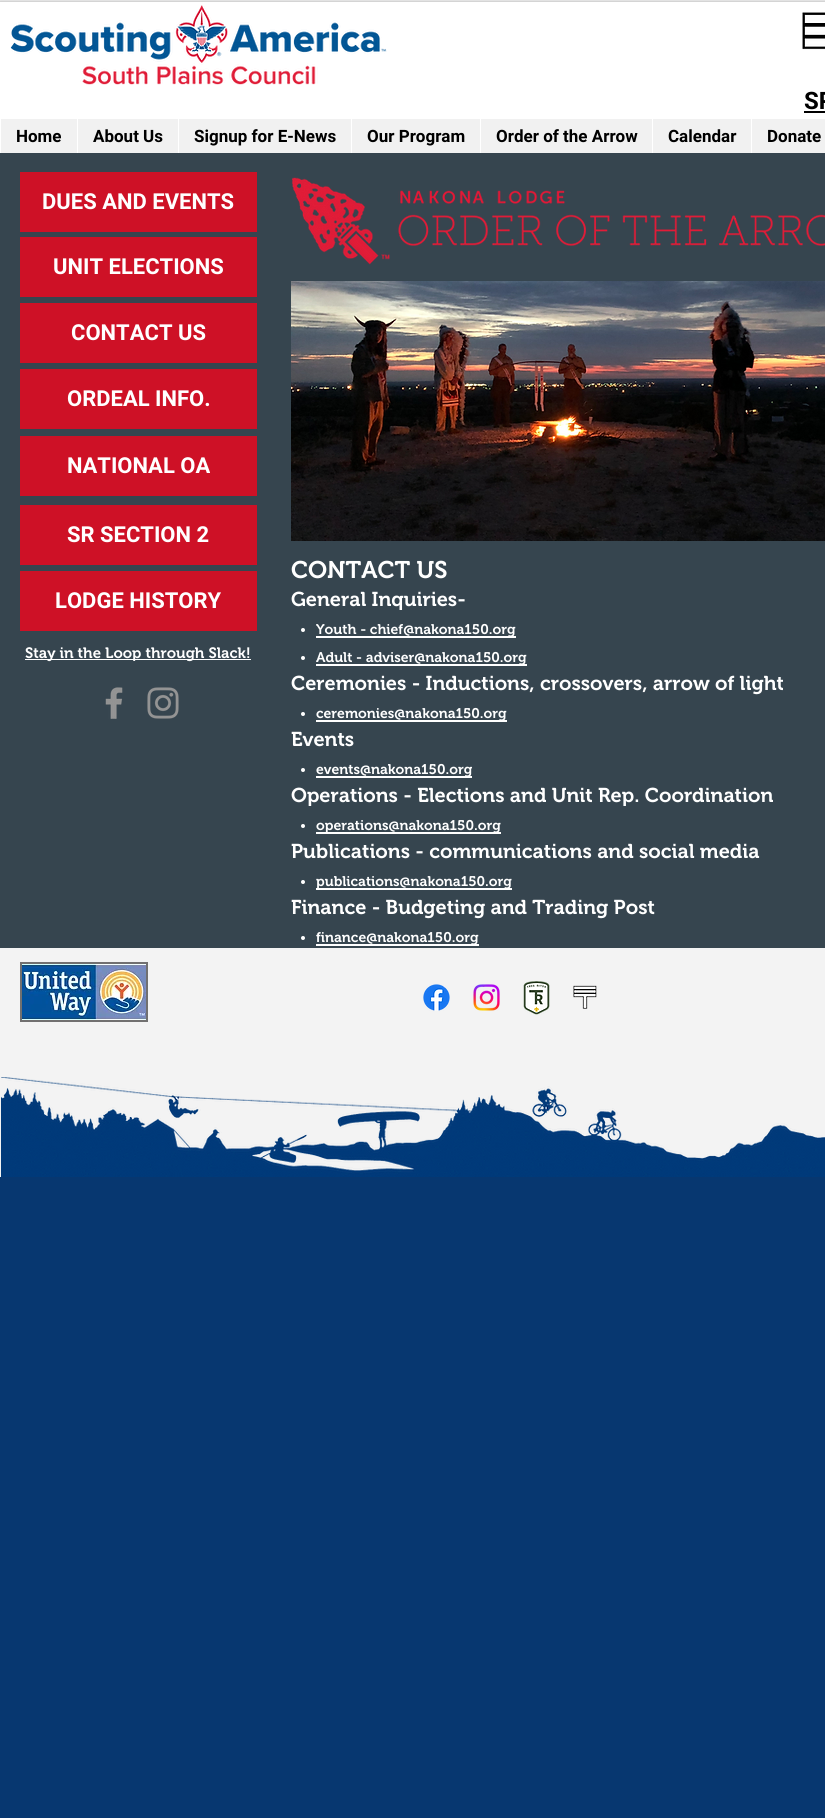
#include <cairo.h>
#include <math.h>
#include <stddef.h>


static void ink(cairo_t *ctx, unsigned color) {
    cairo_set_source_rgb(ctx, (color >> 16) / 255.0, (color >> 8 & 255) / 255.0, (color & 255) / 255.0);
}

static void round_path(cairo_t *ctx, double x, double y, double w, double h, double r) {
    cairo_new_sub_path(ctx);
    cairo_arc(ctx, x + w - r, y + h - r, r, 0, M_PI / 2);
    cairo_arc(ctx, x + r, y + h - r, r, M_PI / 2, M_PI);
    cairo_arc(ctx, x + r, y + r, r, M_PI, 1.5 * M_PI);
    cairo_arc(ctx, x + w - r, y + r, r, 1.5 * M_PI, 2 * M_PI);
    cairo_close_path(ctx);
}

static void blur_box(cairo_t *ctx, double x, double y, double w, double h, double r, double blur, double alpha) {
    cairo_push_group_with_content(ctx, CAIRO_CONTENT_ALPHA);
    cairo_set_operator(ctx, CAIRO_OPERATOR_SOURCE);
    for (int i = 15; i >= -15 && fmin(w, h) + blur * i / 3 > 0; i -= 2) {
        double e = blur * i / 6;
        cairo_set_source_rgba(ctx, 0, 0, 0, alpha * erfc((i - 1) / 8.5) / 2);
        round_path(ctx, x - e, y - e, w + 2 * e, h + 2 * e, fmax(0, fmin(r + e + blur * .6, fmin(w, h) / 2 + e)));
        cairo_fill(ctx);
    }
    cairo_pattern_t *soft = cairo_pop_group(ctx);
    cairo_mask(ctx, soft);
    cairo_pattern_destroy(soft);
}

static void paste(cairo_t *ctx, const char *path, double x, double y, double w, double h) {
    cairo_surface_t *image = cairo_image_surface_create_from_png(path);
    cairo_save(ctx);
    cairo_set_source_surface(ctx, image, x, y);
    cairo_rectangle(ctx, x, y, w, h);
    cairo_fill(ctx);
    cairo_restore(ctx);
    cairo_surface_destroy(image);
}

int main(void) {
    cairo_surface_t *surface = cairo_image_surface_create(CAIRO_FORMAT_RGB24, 825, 1818);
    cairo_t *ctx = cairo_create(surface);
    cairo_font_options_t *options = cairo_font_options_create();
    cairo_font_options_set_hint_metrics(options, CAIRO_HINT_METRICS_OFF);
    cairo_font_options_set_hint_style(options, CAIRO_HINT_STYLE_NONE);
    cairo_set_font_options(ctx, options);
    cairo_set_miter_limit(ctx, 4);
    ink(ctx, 0x073770);
    cairo_paint(ctx);
    ink(ctx, 0xF3F3F3);
    cairo_rectangle(ctx, 0, 0, 825, 2);
    cairo_fill(ctx);
    ink(ctx, 0x000000);
    blur_box(ctx, 0, 3, 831, 151, 0, 2, 0.6);
    ink(ctx, 0xFFFFFF);
    cairo_rectangle(ctx, 0, 2, 825, 151);
    cairo_fill(ctx);
    paste(ctx, "media/1.png", 10, 5, 377, 80);
    paste(ctx, "media/2.png", 802, 12, 23, 38);
    cairo_select_font_face(ctx, "Roboto", CAIRO_FONT_SLANT_NORMAL, CAIRO_FONT_WEIGHT_BOLD);
    cairo_set_font_size(ctx, 24);
    ink(ctx, 0x000000);
    cairo_move_to(ctx, 804, 109);
    cairo_show_text(ctx, "SP");
    cairo_rectangle(ctx, 804, 111, 21, 2);
    cairo_fill(ctx);
    ink(ctx, 0xF1F1F1);
    cairo_rectangle(ctx, 1, 119, 824, 34);
    cairo_fill(ctx);
    cairo_set_font_size(ctx, 17);
    ink(ctx, 0x000000);
    cairo_move_to(ctx, 16, 142);
    cairo_show_text(ctx, "Home");
    ink(ctx, 0xFFFFFF);
    cairo_rectangle(ctx, 77, 119, 1, 34);
    cairo_fill(ctx);
    ink(ctx, 0x000000);
    cairo_move_to(ctx, 93, 142);
    cairo_show_text(ctx, "About Us");
    ink(ctx, 0xFFFFFF);
    cairo_rectangle(ctx, 178, 119, 1, 34);
    cairo_fill(ctx);
    ink(ctx, 0x000000);
    cairo_move_to(ctx, 194, 142);
    cairo_show_text(ctx, "Signup for E-News");
    ink(ctx, 0xFFFFFF);
    cairo_rectangle(ctx, 351, 119, 1, 34);
    cairo_fill(ctx);
    ink(ctx, 0x000000);
    cairo_move_to(ctx, 367, 142);
    cairo_show_text(ctx, "Our Program");
    ink(ctx, 0xFFFFFF);
    cairo_rectangle(ctx, 480, 119, 1, 34);
    cairo_fill(ctx);
    ink(ctx, 0x000000);
    cairo_move_to(ctx, 496, 142);
    cairo_show_text(ctx, "Order of the Arrow");
    ink(ctx, 0xFFFFFF);
    cairo_rectangle(ctx, 652, 119, 1, 34);
    cairo_fill(ctx);
    ink(ctx, 0x000000);
    cairo_move_to(ctx, 668, 142);
    cairo_show_text(ctx, "Calendar");
    ink(ctx, 0xFFFFFF);
    cairo_rectangle(ctx, 751, 119, 1, 34);
    cairo_fill(ctx);
    ink(ctx, 0x000000);
    cairo_move_to(ctx, 767, 142);
    cairo_show_text(ctx, "Donate");
    ink(ctx, 0x36454F);
    cairo_rectangle(ctx, 0, 153, 825, 795);
    cairo_fill(ctx);
    ink(ctx, 0xCE1126);
    cairo_rectangle(ctx, 20, 172, 237, 60);
    cairo_fill(ctx);
    cairo_set_font_size(ctx, 22);
    ink(ctx, 0xFFFFFF);
    cairo_move_to(ctx, 42, 209);
    cairo_show_text(ctx, "DUES AND EVENTS");
    paste(ctx, "media/3.png", 291, 177, 534, 88);
    ink(ctx, 0xCE1126);
    cairo_rectangle(ctx, 20, 237, 237, 60);
    cairo_fill(ctx);
    ink(ctx, 0xFFFFFF);
    cairo_move_to(ctx, 53, 274);
    cairo_show_text(ctx, "UNIT ELECTIONS");
    ink(ctx, 0xCE1126);
    cairo_rectangle(ctx, 20, 303, 237, 60);
    cairo_fill(ctx);
    ink(ctx, 0xFFFFFF);
    cairo_move_to(ctx, 71, 340);
    cairo_show_text(ctx, "CONTACT US");
    paste(ctx, "media/4.png", 291, 281, 534, 260);
    ink(ctx, 0xCE1126);
    cairo_rectangle(ctx, 20, 369, 237, 60);
    cairo_fill(ctx);
    ink(ctx, 0xFFFFFF);
    cairo_move_to(ctx, 67, 406);
    cairo_show_text(ctx, "ORDEAL INFO.");
    ink(ctx, 0xCE1126);
    cairo_rectangle(ctx, 20, 436, 237, 60);
    cairo_fill(ctx);
    ink(ctx, 0xFFFFFF);
    cairo_move_to(ctx, 67, 473);
    cairo_show_text(ctx, "NATIONAL OA");
    ink(ctx, 0xCE1126);
    cairo_rectangle(ctx, 20, 505, 237, 60);
    cairo_fill(ctx);
    ink(ctx, 0xFFFFFF);
    cairo_move_to(ctx, 67, 542);
    cairo_show_text(ctx, "SR SECTION 2");
    ink(ctx, 0xCE1126);
    cairo_rectangle(ctx, 20, 571, 237, 60);
    cairo_fill(ctx);
    ink(ctx, 0xFFFFFF);
    cairo_move_to(ctx, 55, 608);
    cairo_show_text(ctx, "LODGE HISTORY");
    cairo_select_font_face(ctx, "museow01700 SemiBold", CAIRO_FONT_SLANT_NORMAL, CAIRO_FONT_WEIGHT_NORMAL);
    cairo_set_font_size(ctx, 24);
    cairo_move_to(ctx, 291, 578);
    cairo_show_text(ctx, "CONTACT US");
    cairo_set_font_size(ctx, 20);
    cairo_move_to(ctx, 291, 606);
    cairo_show_text(ctx, "General Inquiries-");
    cairo_new_path(ctx);
    cairo_arc(ctx, 303, 630, 2, 0, 2 * M_PI);
    cairo_fill(ctx);
    cairo_rectangle(ctx, 316, 636, 200, 2);
    cairo_fill(ctx);
    cairo_set_font_size(ctx, 14);
    cairo_move_to(ctx, 316, 634);
    cairo_show_text(ctx, "Youth - chief@nakona150.org");
    cairo_new_path(ctx);
    cairo_arc(ctx, 303, 658, 2, 0, 2 * M_PI);
    cairo_fill(ctx);
    cairo_rectangle(ctx, 316, 664, 211, 2);
    cairo_fill(ctx);
    cairo_move_to(ctx, 316, 662);
    cairo_show_text(ctx, "Adult - adviser@nakona150.org");
    cairo_set_font_size(ctx, 20);
    cairo_move_to(ctx, 291, 690);
    cairo_show_text(ctx, "Ceremonies - Inductions, crossovers, arrow of light");
    cairo_new_path(ctx);
    cairo_arc(ctx, 303, 714, 2, 0, 2 * M_PI);
    cairo_fill(ctx);
    cairo_rectangle(ctx, 316, 720, 191, 2);
    cairo_fill(ctx);
    cairo_set_font_size(ctx, 14);
    cairo_move_to(ctx, 316, 718);
    cairo_show_text(ctx, "ceremonies@nakona150.org");
    cairo_set_font_size(ctx, 20);
    cairo_move_to(ctx, 291, 746);
    cairo_show_text(ctx, "Events");
    cairo_new_path(ctx);
    cairo_arc(ctx, 303, 770, 2, 0, 2 * M_PI);
    cairo_fill(ctx);
    cairo_rectangle(ctx, 316, 776, 156, 2);
    cairo_fill(ctx);
    cairo_set_font_size(ctx, 14);
    cairo_move_to(ctx, 316, 774);
    cairo_show_text(ctx, "events@nakona150.org");
    cairo_set_font_size(ctx, 20);
    cairo_move_to(ctx, 291, 802);
    cairo_show_text(ctx, "Operations - Elections and Unit Rep. Coordination");
    cairo_new_path(ctx);
    cairo_arc(ctx, 303, 826, 2, 0, 2 * M_PI);
    cairo_fill(ctx);
    cairo_rectangle(ctx, 316, 832, 185, 2);
    cairo_fill(ctx);
    cairo_set_font_size(ctx, 14);
    cairo_move_to(ctx, 316, 830);
    cairo_show_text(ctx, "operations@nakona150.org");
    cairo_set_font_size(ctx, 20);
    cairo_move_to(ctx, 291, 858);
    cairo_show_text(ctx, "Publications - communications and social media");
    cairo_new_path(ctx);
    cairo_arc(ctx, 303, 882, 2, 0, 2 * M_PI);
    cairo_fill(ctx);
    cairo_rectangle(ctx, 316, 888, 196, 2);
    cairo_fill(ctx);
    cairo_set_font_size(ctx, 14);
    cairo_move_to(ctx, 316, 886);
    cairo_show_text(ctx, "publications@nakona150.org");
    cairo_set_font_size(ctx, 20);
    cairo_move_to(ctx, 291, 914);
    cairo_show_text(ctx, "Finance - Budgeting and Trading Post");
    cairo_new_path(ctx);
    cairo_arc(ctx, 303, 938, 2, 0, 2 * M_PI);
    cairo_fill(ctx);
    cairo_rectangle(ctx, 316, 944, 163, 2);
    cairo_fill(ctx);
    cairo_set_font_size(ctx, 14);
    cairo_move_to(ctx, 316, 942);
    cairo_show_text(ctx, "finance@nakona150.org");
    cairo_rectangle(ctx, 25, 659, 226, 1);
    cairo_fill(ctx);
    cairo_set_font_size(ctx, 15);
    cairo_move_to(ctx, 25, 658);
    cairo_show_text(ctx, "Stay in the Loop through Slack!");
    paste(ctx, "media/5.png", 105, 687, 18, 32);
    paste(ctx, "media/6.png", 147, 687, 32, 32);
    ink(ctx, 0xF3F3F3);
    cairo_rectangle(ctx, 0, 948, 825, 229);
    cairo_fill(ctx);
    ink(ctx, 0x717070);
    cairo_rectangle(ctx, 20, 962, 128, 60);
    cairo_fill(ctx);
    paste(ctx, "media/7.png", 22, 964, 124, 56);
    paste(ctx, "media/8.png", 423, 984, 27, 27);
    paste(ctx, "media/9.png", 473, 984, 27, 27);
    paste(ctx, "media/10.png", 523, 981, 27, 34);
    paste(ctx, "media/11.png", 573, 985, 24, 24);
    paste(ctx, "media/12.png", 1, 1077, 824, 100);
    cairo_surface_write_to_png(surface, "image.png");
    cairo_font_options_destroy(options);
    cairo_destroy(ctx);
    cairo_surface_destroy(surface);
    return 0;
}
